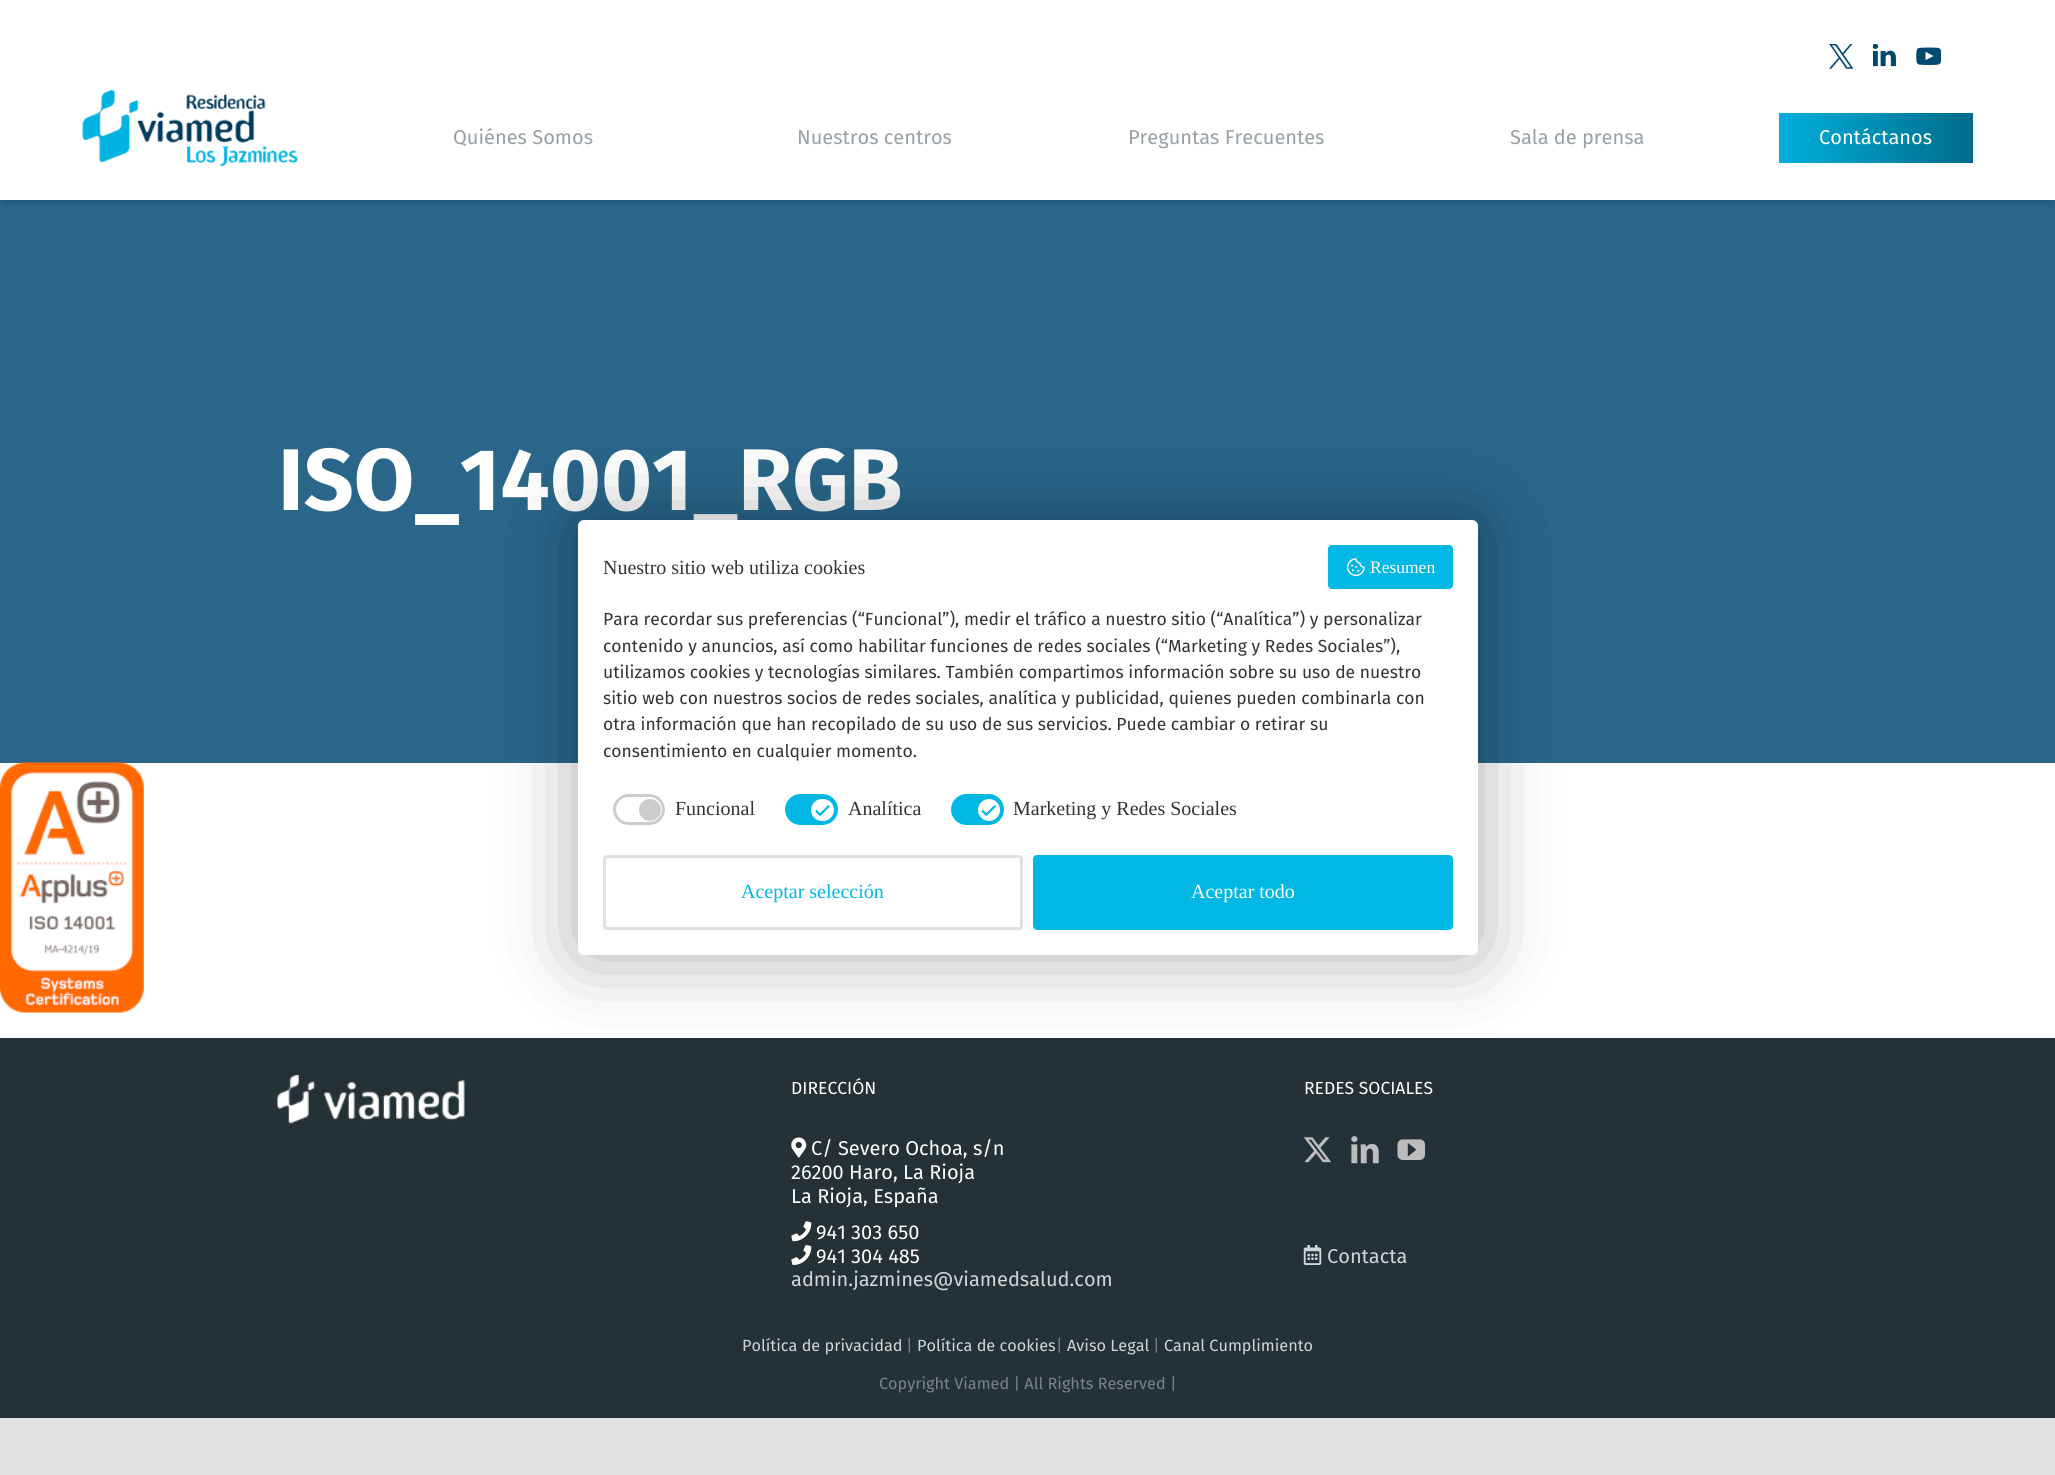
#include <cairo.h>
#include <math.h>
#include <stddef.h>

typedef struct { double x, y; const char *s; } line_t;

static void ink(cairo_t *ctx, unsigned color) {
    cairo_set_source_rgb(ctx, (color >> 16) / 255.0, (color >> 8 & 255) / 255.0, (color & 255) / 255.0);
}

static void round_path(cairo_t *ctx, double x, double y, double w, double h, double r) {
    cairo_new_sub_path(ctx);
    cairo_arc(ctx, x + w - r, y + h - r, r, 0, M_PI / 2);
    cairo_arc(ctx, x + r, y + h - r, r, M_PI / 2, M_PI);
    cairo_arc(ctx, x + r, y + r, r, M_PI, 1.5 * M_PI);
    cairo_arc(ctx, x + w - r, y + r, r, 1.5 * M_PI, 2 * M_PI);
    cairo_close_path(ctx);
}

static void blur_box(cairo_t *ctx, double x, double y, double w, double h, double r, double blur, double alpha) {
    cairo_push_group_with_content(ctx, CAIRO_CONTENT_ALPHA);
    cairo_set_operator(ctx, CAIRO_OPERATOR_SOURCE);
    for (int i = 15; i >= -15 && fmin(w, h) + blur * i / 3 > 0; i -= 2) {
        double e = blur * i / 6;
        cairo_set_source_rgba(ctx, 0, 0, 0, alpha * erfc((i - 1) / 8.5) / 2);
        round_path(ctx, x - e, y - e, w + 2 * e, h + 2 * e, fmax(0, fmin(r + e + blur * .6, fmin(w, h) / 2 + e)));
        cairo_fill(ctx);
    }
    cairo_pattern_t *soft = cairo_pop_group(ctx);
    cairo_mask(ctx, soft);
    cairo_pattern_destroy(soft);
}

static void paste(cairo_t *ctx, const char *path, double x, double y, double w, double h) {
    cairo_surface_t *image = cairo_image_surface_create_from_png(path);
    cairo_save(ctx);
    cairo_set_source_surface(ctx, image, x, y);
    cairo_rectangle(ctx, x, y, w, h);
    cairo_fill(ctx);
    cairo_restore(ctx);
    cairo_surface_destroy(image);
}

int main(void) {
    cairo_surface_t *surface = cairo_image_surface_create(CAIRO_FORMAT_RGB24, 2055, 1475);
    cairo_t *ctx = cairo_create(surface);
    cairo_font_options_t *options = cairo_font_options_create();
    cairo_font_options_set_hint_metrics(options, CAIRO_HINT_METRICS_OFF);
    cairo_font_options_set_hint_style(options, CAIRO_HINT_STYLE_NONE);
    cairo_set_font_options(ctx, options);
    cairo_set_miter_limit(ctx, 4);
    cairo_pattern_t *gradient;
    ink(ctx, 0xE2E2E2);
    cairo_paint(ctx);
    ink(ctx, 0xFFFFFF);
    cairo_rectangle(ctx, 0, 0, 2055, 1038);
    cairo_fill(ctx);
    ink(ctx, 0x29668A);
    cairo_rectangle(ctx, 0, 200, 2055, 563);
    cairo_fill(ctx);
    cairo_save(ctx);
    cairo_rectangle(ctx, 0, 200, 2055, 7);
    cairo_clip(ctx);
    ink(ctx, 0x000000);
    blur_box(ctx, 4, 8, 2047, 192, 0, 4.5, 0.3);
    cairo_restore(ctx);
    paste(ctx, "media/1.png", 1829, 44, 25, 25);
    paste(ctx, "media/2.png", 1873, 44, 23, 23);
    paste(ctx, "media/3.png", 1916, 47, 25, 18);
    paste(ctx, "media/4.png", 82, 89, 216, 78);
    cairo_select_font_face(ctx, "Fira Sans", CAIRO_FONT_SLANT_NORMAL, CAIRO_FONT_WEIGHT_NORMAL);
    cairo_set_font_size(ctx, 20);
    ink(ctx, 0x97A0A4);
    {
        static const line_t items[] = {
            {453, 144, "Quiénes Somos"},
            {797, 144, "Nuestros centros"},
            {1128, 144, "Preguntas Frecuentes"},
            {1510, 144, "Sala de prensa"},
        };
        for (size_t i = 0; i < sizeof items / sizeof *items; i++) {
            cairo_move_to(ctx, items[i].x, items[i].y);
            cairo_show_text(ctx, items[i].s);
        }
    }
    gradient = cairo_pattern_create_linear(1779, 138, 1973, 138);
    cairo_pattern_add_color_stop_rgba(gradient, 0, 0, 0.686, 0.863, 1);
    cairo_pattern_add_color_stop_rgba(gradient, 1, 0, 0.424, 0.537, 1);
    cairo_set_source(ctx, gradient);
    cairo_pattern_destroy(gradient);
    cairo_rectangle(ctx, 1779, 113, 194, 50);
    cairo_fill(ctx);
    ink(ctx, 0xFFFFFF);
    cairo_move_to(ctx, 1819, 144);
    cairo_show_text(ctx, "Contáctanos");
    cairo_select_font_face(ctx, "Fira Sans", CAIRO_FONT_SLANT_NORMAL, CAIRO_FONT_WEIGHT_BOLD);
    cairo_set_font_size(ctx, 87.5);
    cairo_move_to(ctx, 278, 510);
    cairo_show_text(ctx, "ISO_14001_RGB");
    paste(ctx, "media/5.png", 0, 762, 144, 251);
    ink(ctx, 0x243136);
    cairo_rectangle(ctx, 0, 1038, 2055, 380);
    cairo_fill(ctx);
    paste(ctx, "media/6.png", 277, 1075, 188, 49);
    cairo_select_font_face(ctx, "Fira Sans", CAIRO_FONT_SLANT_NORMAL, CAIRO_FONT_WEIGHT_NORMAL);
    cairo_set_font_size(ctx, 17.5);
    ink(ctx, 0xFFFFFF);
    cairo_move_to(ctx, 791, 1094);
    cairo_show_text(ctx, "DIRECCIÓN");
    paste(ctx, "media/7.png", 791, 1137, 16, 21);
    cairo_set_font_size(ctx, 20);
    {
        static const line_t items[] = {
            {811, 1155, "C/ Severo Ochoa, s/n"},
            {791, 1179, "26200 Haro, La Rioja"},
            {791, 1203, "La Rioja, España"},
        };
        for (size_t i = 0; i < sizeof items / sizeof *items; i++) {
            cairo_move_to(ctx, items[i].x, items[i].y);
            cairo_show_text(ctx, items[i].s);
        }
    }
    paste(ctx, "media/8.png", 791, 1221, 21, 21);
    cairo_move_to(ctx, 816, 1239);
    cairo_show_text(ctx, "941 303 650");
    paste(ctx, "media/9.png", 791, 1245, 21, 20);
    cairo_move_to(ctx, 816, 1263);
    cairo_show_text(ctx, "941 304 485");
    ink(ctx, 0xD3D6D7);
    cairo_move_to(ctx, 791, 1286);
    cairo_show_text(ctx, "admin.jazmines@viamedsalud.com");
    cairo_set_font_size(ctx, 17.5);
    ink(ctx, 0xFFFFFF);
    cairo_move_to(ctx, 1304, 1094);
    cairo_show_text(ctx, "REDES SOCIALES");
    paste(ctx, "media/10.png", 1304, 1137, 28, 26);
    paste(ctx, "media/11.png", 1351, 1136, 28, 28);
    paste(ctx, "media/12.png", 1397, 1139, 28, 21);
    paste(ctx, "media/13.png", 1303, 1245, 19, 20);
    cairo_set_font_size(ctx, 20);
    ink(ctx, 0xD3D6D7);
    cairo_move_to(ctx, 1327, 1263);
    cairo_show_text(ctx, "Contacta");
    cairo_set_font_size(ctx, 16.25);
    cairo_move_to(ctx, 742, 1351);
    cairo_show_text(ctx, "Política de privacidad");
    ink(ctx, 0x7C8386);
    cairo_move_to(ctx, 906, 1351);
    cairo_show_text(ctx, "|");
    ink(ctx, 0xD3D6D7);
    cairo_move_to(ctx, 917, 1351);
    cairo_show_text(ctx, "Política de cookies");
    ink(ctx, 0x7C8386);
    cairo_move_to(ctx, 1056, 1351);
    cairo_show_text(ctx, "|");
    ink(ctx, 0xD3D6D7);
    cairo_move_to(ctx, 1067, 1351);
    cairo_show_text(ctx, "Aviso Legal");
    ink(ctx, 0x7C8386);
    cairo_move_to(ctx, 1153, 1351);
    cairo_show_text(ctx, "|");
    ink(ctx, 0xD3D6D7);
    cairo_move_to(ctx, 1164, 1351);
    cairo_show_text(ctx, "Canal Cumplimiento");
    ink(ctx, 0x7C8386);
    cairo_move_to(ctx, 879, 1389);
    cairo_show_text(ctx, "Copyright Viamed | All Rights Reserved |");
    ink(ctx, 0x000000);
    blur_box(ctx, 578, 520, 900, 435, 6, 40, 0.33);
    ink(ctx, 0xFFFFFF);
    round_path(ctx, 578, 520, 900, 435, 6);
    cairo_fill(ctx);
    cairo_select_font_face(ctx, "Liberation Serif", CAIRO_FONT_SLANT_NORMAL, CAIRO_FONT_WEIGHT_NORMAL);
    cairo_set_font_size(ctx, 20);
    ink(ctx, 0x333333);
    cairo_move_to(ctx, 603, 574);
    cairo_show_text(ctx, "Nuestro sitio web utiliza cookies");
    ink(ctx, 0x00B8E3);
    round_path(ctx, 1328, 545, 125, 44, 4);
    cairo_fill(ctx);
    paste(ctx, "media/14.png", 1347, 558, 18, 19);
    cairo_set_font_size(ctx, 17.5);
    ink(ctx, 0xFFFFFF);
    cairo_move_to(ctx, 1370, 573);
    cairo_show_text(ctx, "Resumen");
    cairo_select_font_face(ctx, "Fira Sans", CAIRO_FONT_SLANT_NORMAL, CAIRO_FONT_WEIGHT_NORMAL);
    ink(ctx, 0x333333);
    {
        static const line_t items[] = {
            {603, 625, "Para recordar sus preferencias (“Funcional”), medir el tráfico a nuestro sitio (“Analítica”) y personalizar"},
            {603, 652, "contenido y anuncios, así como habilitar funciones de redes sociales (“Marketing y Redes Sociales”),"},
            {603, 678, "utilizamos cookies y tecnologías similares. También compartimos información sobre su uso de nuestro"},
            {603, 704, "sitio web con nuestros socios de redes sociales, analítica y publicidad, quienes pueden combinarla con"},
            {603, 730, "otra información que han recopilado de su uso de sus servicios. Puede cambiar o retirar su"},
            {603, 757, "consentimiento en cualquier momento."},
        };
        for (size_t i = 0; i < sizeof items / sizeof *items; i++) {
            cairo_move_to(ctx, items[i].x, items[i].y);
            cairo_show_text(ctx, items[i].s);
        }
    }
    round_path(ctx, 614.5, 795.5, 49, 28, 14);
    ink(ctx, 0xCCCCCC);
    cairo_set_line_width(ctx, 3);
    cairo_stroke(ctx);
    cairo_arc(ctx, 650, 810, 11, 0, 2 * M_PI);
    cairo_fill(ctx);
    cairo_select_font_face(ctx, "Liberation Serif", CAIRO_FONT_SLANT_NORMAL, CAIRO_FONT_WEIGHT_NORMAL);
    cairo_set_font_size(ctx, 20);
    ink(ctx, 0x333333);
    cairo_move_to(ctx, 675, 815);
    cairo_show_text(ctx, "Funcional");
    ink(ctx, 0x00B8E3);
    round_path(ctx, 786.5, 795.5, 50, 28, 14);
    cairo_fill_preserve(ctx);
    cairo_stroke(ctx);
    ink(ctx, 0xFFFFFF);
    round_path(ctx, 811, 799, 23, 22, 11);
    cairo_fill(ctx);
    paste(ctx, "media/15.png", 815, 805, 15, 11);
    ink(ctx, 0x333333);
    cairo_move_to(ctx, 848, 815);
    cairo_show_text(ctx, "Analítica");
    ink(ctx, 0x00B8E3);
    round_path(ctx, 952.5, 795.5, 50, 28, 14);
    cairo_fill_preserve(ctx);
    cairo_stroke(ctx);
    ink(ctx, 0xFFFFFF);
    cairo_arc(ctx, 989, 810, 11, 0, 2 * M_PI);
    cairo_fill(ctx);
    paste(ctx, "media/16.png", 981, 805, 15, 11);
    ink(ctx, 0x333333);
    cairo_move_to(ctx, 1013, 815);
    cairo_show_text(ctx, "Marketing y Redes Sociales");
    round_path(ctx, 604.5, 856.5, 417, 72, 2.5);
    ink(ctx, 0xE0E0E0);
    cairo_stroke(ctx);
    ink(ctx, 0x00B8E3);
    cairo_move_to(ctx, 741, 898);
    cairo_show_text(ctx, "Aceptar selección");
    round_path(ctx, 1034.5, 856.5, 417, 72, 2.5);
    cairo_fill_preserve(ctx);
    cairo_stroke(ctx);
    ink(ctx, 0xFFFFFF);
    cairo_move_to(ctx, 1191, 898);
    cairo_show_text(ctx, "Aceptar todo");
    cairo_surface_write_to_png(surface, "image.png");
    cairo_font_options_destroy(options);
    cairo_destroy(ctx);
    cairo_surface_destroy(surface);
    return 0;
}
